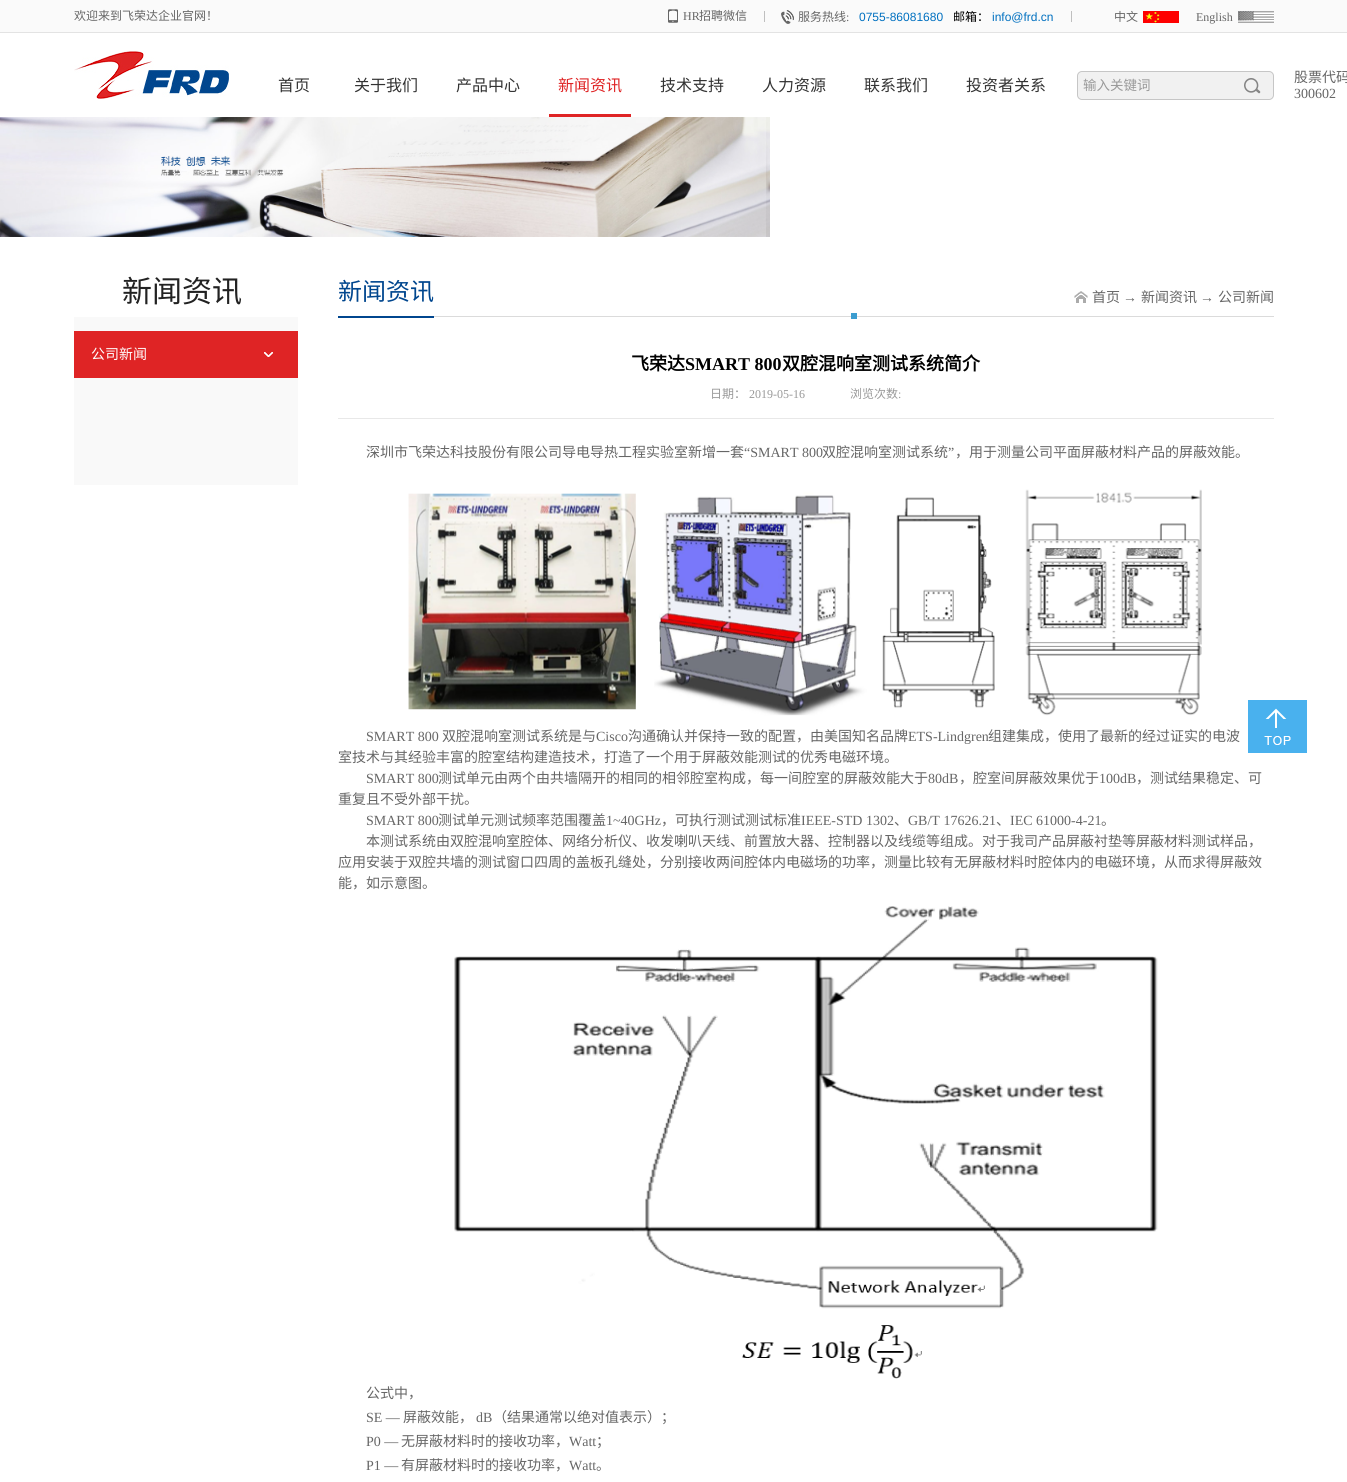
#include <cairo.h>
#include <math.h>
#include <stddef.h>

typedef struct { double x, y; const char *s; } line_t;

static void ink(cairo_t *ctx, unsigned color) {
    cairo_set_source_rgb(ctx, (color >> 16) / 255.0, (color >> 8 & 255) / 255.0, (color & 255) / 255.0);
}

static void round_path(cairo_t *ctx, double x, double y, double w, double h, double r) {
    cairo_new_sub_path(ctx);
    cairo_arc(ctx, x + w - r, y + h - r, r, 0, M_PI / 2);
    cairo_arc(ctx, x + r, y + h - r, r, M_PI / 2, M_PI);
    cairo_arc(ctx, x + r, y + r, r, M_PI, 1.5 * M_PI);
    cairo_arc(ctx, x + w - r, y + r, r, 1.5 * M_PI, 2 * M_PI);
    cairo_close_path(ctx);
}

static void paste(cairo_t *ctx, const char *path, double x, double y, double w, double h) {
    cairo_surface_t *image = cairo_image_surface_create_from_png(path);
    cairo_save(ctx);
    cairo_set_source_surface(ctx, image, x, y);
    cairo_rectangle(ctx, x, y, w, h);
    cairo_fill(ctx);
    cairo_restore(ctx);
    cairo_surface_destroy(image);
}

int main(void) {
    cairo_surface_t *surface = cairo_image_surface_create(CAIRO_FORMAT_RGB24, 1347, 1482);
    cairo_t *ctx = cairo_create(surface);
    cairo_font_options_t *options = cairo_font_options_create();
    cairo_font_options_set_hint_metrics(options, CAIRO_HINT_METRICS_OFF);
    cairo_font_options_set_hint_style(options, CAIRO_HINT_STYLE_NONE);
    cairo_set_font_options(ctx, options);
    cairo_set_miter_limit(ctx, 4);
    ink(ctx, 0xFFFFFF);
    cairo_paint(ctx);
    ink(ctx, 0xFAFAFA);
    cairo_rectangle(ctx, 0, 0, 1347, 32);
    cairo_fill(ctx);
    ink(ctx, 0xE3E3E3);
    cairo_rectangle(ctx, 0, 32, 1347, 1);
    cairo_fill(ctx);
    cairo_select_font_face(ctx, "Noto Sans CJK SC", CAIRO_FONT_SLANT_NORMAL, CAIRO_FONT_WEIGHT_NORMAL);
    cairo_set_font_size(ctx, 12);
    ink(ctx, 0x666666);
    cairo_move_to(ctx, 74, 20);
    cairo_show_text(ctx, "欢迎来到飞荣达企业官网！");
    paste(ctx, "media/1.png", 668, 9, 10, 14);
    cairo_select_font_face(ctx, "Liberation Serif", CAIRO_FONT_SLANT_NORMAL, CAIRO_FONT_WEIGHT_NORMAL);
    cairo_move_to(ctx, 683, 20);
    cairo_show_text(ctx, "HR");
    cairo_select_font_face(ctx, "Noto Sans CJK SC", CAIRO_FONT_SLANT_NORMAL, CAIRO_FONT_WEIGHT_NORMAL);
    cairo_move_to(ctx, 699, 20);
    cairo_show_text(ctx, "招聘微信");
    ink(ctx, 0xBFBFBF);
    cairo_rectangle(ctx, 764, 11, 1, 11);
    cairo_fill(ctx);
    paste(ctx, "media/2.png", 781, 10, 13, 14);
    ink(ctx, 0x666666);
    cairo_move_to(ctx, 798, 21);
    cairo_show_text(ctx, "服务热线");
    cairo_select_font_face(ctx, "Liberation Serif", CAIRO_FONT_SLANT_NORMAL, CAIRO_FONT_WEIGHT_NORMAL);
    cairo_move_to(ctx, 846, 21);
    cairo_show_text(ctx, ":");
    cairo_select_font_face(ctx, "Liberation Sans", CAIRO_FONT_SLANT_NORMAL, CAIRO_FONT_WEIGHT_NORMAL);
    ink(ctx, 0x0070C0);
    cairo_move_to(ctx, 859, 21);
    cairo_show_text(ctx, "0755-86081680");
    cairo_select_font_face(ctx, "Noto Sans CJK SC", CAIRO_FONT_SLANT_NORMAL, CAIRO_FONT_WEIGHT_NORMAL);
    ink(ctx, 0x000000);
    cairo_move_to(ctx, 953, 21);
    cairo_show_text(ctx, "邮箱：");
    cairo_select_font_face(ctx, "Liberation Sans", CAIRO_FONT_SLANT_NORMAL, CAIRO_FONT_WEIGHT_NORMAL);
    ink(ctx, 0x0070C0);
    cairo_move_to(ctx, 992, 21);
    cairo_show_text(ctx, "info@frd.cn");
    ink(ctx, 0xBFBFBF);
    cairo_rectangle(ctx, 1071, 11, 1, 11);
    cairo_fill(ctx);
    paste(ctx, "media/3.png", 1143, 11, 36, 12);
    cairo_select_font_face(ctx, "Noto Sans CJK SC", CAIRO_FONT_SLANT_NORMAL, CAIRO_FONT_WEIGHT_NORMAL);
    ink(ctx, 0x666666);
    cairo_move_to(ctx, 1114, 21);
    cairo_show_text(ctx, "中文");
    paste(ctx, "media/4.png", 1238, 11, 36, 12);
    cairo_select_font_face(ctx, "Liberation Serif", CAIRO_FONT_SLANT_NORMAL, CAIRO_FONT_WEIGHT_NORMAL);
    cairo_move_to(ctx, 1196, 21);
    cairo_show_text(ctx, "English");
    paste(ctx, "media/5.png", 74, 51, 155, 48);
    cairo_select_font_face(ctx, "Noto Sans CJK SC", CAIRO_FONT_SLANT_NORMAL, CAIRO_FONT_WEIGHT_NORMAL);
    cairo_set_font_size(ctx, 16);
    ink(ctx, 0x333333);
    {
        static const line_t items[] = {
            {278, 91, "首页"},
            {354, 91, "关于我们"},
            {456, 91, "产品中心"},
        };
        for (size_t i = 0; i < sizeof items / sizeof *items; i++) {
            cairo_move_to(ctx, items[i].x, items[i].y);
            cairo_show_text(ctx, items[i].s);
        }
    }
    ink(ctx, 0xDF2425);
    cairo_rectangle(ctx, 549, 114, 82, 3);
    cairo_fill(ctx);
    cairo_move_to(ctx, 558, 91);
    cairo_show_text(ctx, "新闻资讯");
    ink(ctx, 0x333333);
    {
        static const line_t items[] = {
            {660, 91, "技术支持"},
            {762, 91, "人力资源"},
            {864, 91, "联系我们"},
            {966, 91, "投资者关系"},
        };
        for (size_t i = 0; i < sizeof items / sizeof *items; i++) {
            cairo_move_to(ctx, items[i].x, items[i].y);
            cairo_show_text(ctx, items[i].s);
        }
    }
    ink(ctx, 0xF1F1F1);
    round_path(ctx, 1077.5, 71.5, 196, 28, 4.5);
    cairo_fill_preserve(ctx);
    ink(ctx, 0xC6C6C6);
    cairo_set_line_width(ctx, 1);
    cairo_stroke(ctx);
    cairo_set_font_size(ctx, 13.5);
    ink(ctx, 0x999999);
    cairo_move_to(ctx, 1083, 90);
    cairo_show_text(ctx, "输入关键词");
    paste(ctx, "media/6.png", 1244, 78, 17, 16);
    cairo_set_font_size(ctx, 14);
    ink(ctx, 0x666666);
    cairo_move_to(ctx, 1294, 82);
    cairo_show_text(ctx, "股票代码");
    cairo_select_font_face(ctx, "Liberation Serif", CAIRO_FONT_SLANT_NORMAL, CAIRO_FONT_WEIGHT_NORMAL);
    cairo_move_to(ctx, 1294, 98);
    cairo_show_text(ctx, "300602");
    paste(ctx, "media/7.png", 0, 117, 770, 120);
    cairo_select_font_face(ctx, "Noto Sans CJK SC", CAIRO_FONT_SLANT_NORMAL, CAIRO_FONT_WEIGHT_NORMAL);
    cairo_set_font_size(ctx, 30);
    ink(ctx, 0x222222);
    cairo_move_to(ctx, 122, 302);
    cairo_show_text(ctx, "新闻资讯");
    ink(ctx, 0xF9F9F9);
    cairo_rectangle(ctx, 74, 317, 224, 168);
    cairo_fill(ctx);
    ink(ctx, 0xDF2425);
    cairo_rectangle(ctx, 74, 331, 224, 47);
    cairo_fill(ctx);
    paste(ctx, "media/8.png", 264, 352, 9, 5);
    cairo_set_font_size(ctx, 14);
    ink(ctx, 0xFFFFFF);
    cairo_move_to(ctx, 91, 359);
    cairo_show_text(ctx, "公司新闻");
    ink(ctx, 0xDBDBDB);
    cairo_rectangle(ctx, 434, 316, 840, 1);
    cairo_fill(ctx);
    ink(ctx, 0x00468E);
    cairo_rectangle(ctx, 338, 316, 96, 2);
    cairo_fill(ctx);
    cairo_set_font_size(ctx, 24);
    cairo_move_to(ctx, 338, 300);
    cairo_show_text(ctx, "新闻资讯");
    paste(ctx, "media/9.png", 1074, 291, 14, 12);
    cairo_set_font_size(ctx, 14);
    ink(ctx, 0x666666);
    cairo_move_to(ctx, 1092, 302);
    cairo_show_text(ctx, "首页");
    cairo_select_font_face(ctx, "Liberation Serif", CAIRO_FONT_SLANT_NORMAL, CAIRO_FONT_WEIGHT_NORMAL);
    cairo_move_to(ctx, 1123, 302);
    cairo_show_text(ctx, "→");
    cairo_select_font_face(ctx, "Noto Sans CJK SC", CAIRO_FONT_SLANT_NORMAL, CAIRO_FONT_WEIGHT_NORMAL);
    cairo_move_to(ctx, 1141, 302);
    cairo_show_text(ctx, "新闻资讯");
    cairo_select_font_face(ctx, "Liberation Serif", CAIRO_FONT_SLANT_NORMAL, CAIRO_FONT_WEIGHT_NORMAL);
    cairo_move_to(ctx, 1200, 302);
    cairo_show_text(ctx, "→");
    cairo_select_font_face(ctx, "Noto Sans CJK SC", CAIRO_FONT_SLANT_NORMAL, CAIRO_FONT_WEIGHT_NORMAL);
    cairo_move_to(ctx, 1218, 302);
    cairo_show_text(ctx, "公司新闻");
    ink(ctx, 0xE8E8E8);
    cairo_rectangle(ctx, 338, 418, 936, 1);
    cairo_fill(ctx);
    cairo_select_font_face(ctx, "Noto Sans CJK SC", CAIRO_FONT_SLANT_NORMAL, CAIRO_FONT_WEIGHT_BOLD);
    cairo_set_font_size(ctx, 18);
    ink(ctx, 0x000000);
    cairo_move_to(ctx, 631, 370);
    cairo_show_text(ctx, "飞荣达");
    cairo_select_font_face(ctx, "Liberation Serif", CAIRO_FONT_SLANT_NORMAL, CAIRO_FONT_WEIGHT_BOLD);
    cairo_move_to(ctx, 685, 370);
    cairo_show_text(ctx, "SMART 800");
    cairo_select_font_face(ctx, "Noto Sans CJK SC", CAIRO_FONT_SLANT_NORMAL, CAIRO_FONT_WEIGHT_BOLD);
    cairo_move_to(ctx, 782, 370);
    cairo_show_text(ctx, "双腔混响室测试系统简介");
    cairo_select_font_face(ctx, "Noto Sans CJK SC", CAIRO_FONT_SLANT_NORMAL, CAIRO_FONT_WEIGHT_NORMAL);
    cairo_set_font_size(ctx, 12);
    ink(ctx, 0x999999);
    cairo_move_to(ctx, 710, 398);
    cairo_show_text(ctx, "日期：");
    cairo_select_font_face(ctx, "Liberation Serif", CAIRO_FONT_SLANT_NORMAL, CAIRO_FONT_WEIGHT_NORMAL);
    cairo_move_to(ctx, 749, 398);
    cairo_show_text(ctx, "2019-05-16");
    cairo_select_font_face(ctx, "Noto Sans CJK SC", CAIRO_FONT_SLANT_NORMAL, CAIRO_FONT_WEIGHT_NORMAL);
    cairo_move_to(ctx, 850, 398);
    cairo_show_text(ctx, "浏览次数");
    cairo_select_font_face(ctx, "Liberation Serif", CAIRO_FONT_SLANT_NORMAL, CAIRO_FONT_WEIGHT_NORMAL);
    cairo_move_to(ctx, 898, 398);
    cairo_show_text(ctx, ":");
    ink(ctx, 0x3C9DD0);
    cairo_rectangle(ctx, 851, 313, 6, 6);
    cairo_fill(ctx);
    cairo_select_font_face(ctx, "Noto Sans CJK SC", CAIRO_FONT_SLANT_NORMAL, CAIRO_FONT_WEIGHT_NORMAL);
    cairo_set_font_size(ctx, 14);
    ink(ctx, 0x666666);
    cairo_move_to(ctx, 366, 457);
    cairo_show_text(ctx, "深圳市飞荣达科技股份有限公司导电导热工程实验室新增一套");
    cairo_select_font_face(ctx, "Liberation Serif", CAIRO_FONT_SLANT_NORMAL, CAIRO_FONT_WEIGHT_NORMAL);
    cairo_move_to(ctx, 744, 457);
    cairo_show_text(ctx, "“SMART 800");
    cairo_select_font_face(ctx, "Noto Sans CJK SC", CAIRO_FONT_SLANT_NORMAL, CAIRO_FONT_WEIGHT_NORMAL);
    cairo_move_to(ctx, 822, 457);
    cairo_show_text(ctx, "双腔混响室测试系统");
    cairo_select_font_face(ctx, "Liberation Serif", CAIRO_FONT_SLANT_NORMAL, CAIRO_FONT_WEIGHT_NORMAL);
    cairo_move_to(ctx, 948, 457);
    cairo_show_text(ctx, "”");
    cairo_select_font_face(ctx, "Noto Sans CJK SC", CAIRO_FONT_SLANT_NORMAL, CAIRO_FONT_WEIGHT_NORMAL);
    cairo_move_to(ctx, 955, 457);
    cairo_show_text(ctx, "，用于测量公司平面屏蔽材料产品的屏蔽效能。");
    paste(ctx, "media/10.png", 408, 489, 795, 227);
    cairo_select_font_face(ctx, "Liberation Serif", CAIRO_FONT_SLANT_NORMAL, CAIRO_FONT_WEIGHT_NORMAL);
    cairo_move_to(ctx, 366, 741);
    cairo_show_text(ctx, "SMART 800");
    cairo_select_font_face(ctx, "Noto Sans CJK SC", CAIRO_FONT_SLANT_NORMAL, CAIRO_FONT_WEIGHT_NORMAL);
    cairo_move_to(ctx, 442, 741);
    cairo_show_text(ctx, "双腔混响室测试系统是与");
    cairo_select_font_face(ctx, "Liberation Serif", CAIRO_FONT_SLANT_NORMAL, CAIRO_FONT_WEIGHT_NORMAL);
    cairo_move_to(ctx, 596, 741);
    cairo_show_text(ctx, "Cisco");
    cairo_select_font_face(ctx, "Noto Sans CJK SC", CAIRO_FONT_SLANT_NORMAL, CAIRO_FONT_WEIGHT_NORMAL);
    cairo_move_to(ctx, 628, 741);
    cairo_show_text(ctx, "沟通确认并保持一致的配置，由美国知名品牌");
    cairo_select_font_face(ctx, "Liberation Serif", CAIRO_FONT_SLANT_NORMAL, CAIRO_FONT_WEIGHT_NORMAL);
    cairo_move_to(ctx, 908, 741);
    cairo_show_text(ctx, "ETS-Lindgren");
    cairo_select_font_face(ctx, "Noto Sans CJK SC", CAIRO_FONT_SLANT_NORMAL, CAIRO_FONT_WEIGHT_NORMAL);
    cairo_move_to(ctx, 988, 741);
    cairo_show_text(ctx, "组建集成，使用了最新的经过证实的电波");
    cairo_move_to(ctx, 338, 762);
    cairo_show_text(ctx, "室技术与其经验丰富的腔室结构建造技术，打造了一个用于屏蔽效能测试的优秀电磁环境。");
    cairo_select_font_face(ctx, "Liberation Serif", CAIRO_FONT_SLANT_NORMAL, CAIRO_FONT_WEIGHT_NORMAL);
    cairo_move_to(ctx, 366, 783);
    cairo_show_text(ctx, "SMART 800");
    cairo_select_font_face(ctx, "Noto Sans CJK SC", CAIRO_FONT_SLANT_NORMAL, CAIRO_FONT_WEIGHT_NORMAL);
    cairo_move_to(ctx, 438, 783);
    cairo_show_text(ctx, "测试单元由两个由共墙隔开的相同的相邻腔室构成，每一间腔室的屏蔽效能大于");
    cairo_select_font_face(ctx, "Liberation Serif", CAIRO_FONT_SLANT_NORMAL, CAIRO_FONT_WEIGHT_NORMAL);
    cairo_move_to(ctx, 928, 783);
    cairo_show_text(ctx, "80dB");
    cairo_select_font_face(ctx, "Noto Sans CJK SC", CAIRO_FONT_SLANT_NORMAL, CAIRO_FONT_WEIGHT_NORMAL);
    cairo_move_to(ctx, 959, 783);
    cairo_show_text(ctx, "，腔室间屏蔽效果优于");
    cairo_select_font_face(ctx, "Liberation Serif", CAIRO_FONT_SLANT_NORMAL, CAIRO_FONT_WEIGHT_NORMAL);
    cairo_move_to(ctx, 1099, 783);
    cairo_show_text(ctx, "100dB");
    cairo_select_font_face(ctx, "Noto Sans CJK SC", CAIRO_FONT_SLANT_NORMAL, CAIRO_FONT_WEIGHT_NORMAL);
    cairo_move_to(ctx, 1136, 783);
    cairo_show_text(ctx, "，测试结果稳定、可");
    cairo_move_to(ctx, 338, 804);
    cairo_show_text(ctx, "重复且不受外部干扰。");
    cairo_select_font_face(ctx, "Liberation Serif", CAIRO_FONT_SLANT_NORMAL, CAIRO_FONT_WEIGHT_NORMAL);
    cairo_move_to(ctx, 366, 825);
    cairo_show_text(ctx, "SMART 800");
    cairo_select_font_face(ctx, "Noto Sans CJK SC", CAIRO_FONT_SLANT_NORMAL, CAIRO_FONT_WEIGHT_NORMAL);
    cairo_move_to(ctx, 438, 825);
    cairo_show_text(ctx, "测试单元测试频率范围覆盖");
    cairo_select_font_face(ctx, "Liberation Serif", CAIRO_FONT_SLANT_NORMAL, CAIRO_FONT_WEIGHT_NORMAL);
    cairo_move_to(ctx, 606, 825);
    cairo_show_text(ctx, "1~40GHz");
    cairo_select_font_face(ctx, "Noto Sans CJK SC", CAIRO_FONT_SLANT_NORMAL, CAIRO_FONT_WEIGHT_NORMAL);
    cairo_move_to(ctx, 661, 825);
    cairo_show_text(ctx, "，可执行测试测试标准");
    cairo_select_font_face(ctx, "Liberation Serif", CAIRO_FONT_SLANT_NORMAL, CAIRO_FONT_WEIGHT_NORMAL);
    cairo_move_to(ctx, 801, 825);
    cairo_show_text(ctx, "IEEE-STD 1302");
    cairo_select_font_face(ctx, "Noto Sans CJK SC", CAIRO_FONT_SLANT_NORMAL, CAIRO_FONT_WEIGHT_NORMAL);
    cairo_move_to(ctx, 894, 825);
    cairo_show_text(ctx, "、");
    cairo_select_font_face(ctx, "Liberation Serif", CAIRO_FONT_SLANT_NORMAL, CAIRO_FONT_WEIGHT_NORMAL);
    cairo_move_to(ctx, 908, 825);
    cairo_show_text(ctx, "GB/T 17626.21");
    cairo_select_font_face(ctx, "Noto Sans CJK SC", CAIRO_FONT_SLANT_NORMAL, CAIRO_FONT_WEIGHT_NORMAL);
    cairo_move_to(ctx, 996, 825);
    cairo_show_text(ctx, "、");
    cairo_select_font_face(ctx, "Liberation Serif", CAIRO_FONT_SLANT_NORMAL, CAIRO_FONT_WEIGHT_NORMAL);
    cairo_move_to(ctx, 1010, 825);
    cairo_show_text(ctx, "IEC 61000-4-21");
    cairo_select_font_face(ctx, "Noto Sans CJK SC", CAIRO_FONT_SLANT_NORMAL, CAIRO_FONT_WEIGHT_NORMAL);
    {
        static const line_t items[] = {
            {1101, 825, "。"},
            {366, 846, "本测试系统由双腔混响室腔体、网络分析仪、收发喇叭天线、前置放大器、控制器以及线缆等组成。对于我司产品屏蔽衬垫等屏蔽材料测试样品，"},
            {338, 867, "应用安装于双腔共墙的测试窗口四周的盖板孔缝处，分别接收两间腔体内电磁场的功率，测量比较有无屏蔽材料时腔体内的电磁环境，从而求得屏蔽效"},
            {338, 888, "能，如示意图。"},
        };
        for (size_t i = 0; i < sizeof items / sizeof *items; i++) {
            cairo_move_to(ctx, items[i].x, items[i].y);
            cairo_show_text(ctx, items[i].s);
        }
    }
    paste(ctx, "media/11.png", 454, 906, 704, 473);
    cairo_move_to(ctx, 366, 1398);
    cairo_show_text(ctx, "公式中，");
    cairo_select_font_face(ctx, "Liberation Serif", CAIRO_FONT_SLANT_NORMAL, CAIRO_FONT_WEIGHT_NORMAL);
    cairo_move_to(ctx, 366, 1422);
    cairo_show_text(ctx, "SE —");
    cairo_select_font_face(ctx, "Noto Sans CJK SC", CAIRO_FONT_SLANT_NORMAL, CAIRO_FONT_WEIGHT_NORMAL);
    cairo_move_to(ctx, 403, 1422);
    cairo_show_text(ctx, "屏蔽效能，");
    cairo_select_font_face(ctx, "Liberation Serif", CAIRO_FONT_SLANT_NORMAL, CAIRO_FONT_WEIGHT_NORMAL);
    cairo_move_to(ctx, 476, 1422);
    cairo_show_text(ctx, "dB");
    cairo_select_font_face(ctx, "Noto Sans CJK SC", CAIRO_FONT_SLANT_NORMAL, CAIRO_FONT_WEIGHT_NORMAL);
    cairo_move_to(ctx, 493, 1422);
    cairo_show_text(ctx, "（结果通常以绝对值表示）；");
    cairo_select_font_face(ctx, "Liberation Serif", CAIRO_FONT_SLANT_NORMAL, CAIRO_FONT_WEIGHT_NORMAL);
    cairo_move_to(ctx, 366, 1446);
    cairo_show_text(ctx, "P0 —");
    cairo_select_font_face(ctx, "Noto Sans CJK SC", CAIRO_FONT_SLANT_NORMAL, CAIRO_FONT_WEIGHT_NORMAL);
    cairo_move_to(ctx, 401, 1446);
    cairo_show_text(ctx, "无屏蔽材料时的接收功率，");
    cairo_select_font_face(ctx, "Liberation Serif", CAIRO_FONT_SLANT_NORMAL, CAIRO_FONT_WEIGHT_NORMAL);
    cairo_move_to(ctx, 569, 1446);
    cairo_show_text(ctx, "Watt");
    cairo_select_font_face(ctx, "Noto Sans CJK SC", CAIRO_FONT_SLANT_NORMAL, CAIRO_FONT_WEIGHT_NORMAL);
    cairo_move_to(ctx, 596, 1446);
    cairo_show_text(ctx, "；");
    cairo_select_font_face(ctx, "Liberation Serif", CAIRO_FONT_SLANT_NORMAL, CAIRO_FONT_WEIGHT_NORMAL);
    cairo_move_to(ctx, 366, 1470);
    cairo_show_text(ctx, "P1 —");
    cairo_select_font_face(ctx, "Noto Sans CJK SC", CAIRO_FONT_SLANT_NORMAL, CAIRO_FONT_WEIGHT_NORMAL);
    cairo_move_to(ctx, 401, 1470);
    cairo_show_text(ctx, "有屏蔽材料时的接收功率，");
    cairo_select_font_face(ctx, "Liberation Serif", CAIRO_FONT_SLANT_NORMAL, CAIRO_FONT_WEIGHT_NORMAL);
    cairo_move_to(ctx, 569, 1470);
    cairo_show_text(ctx, "Watt");
    cairo_select_font_face(ctx, "Noto Sans CJK SC", CAIRO_FONT_SLANT_NORMAL, CAIRO_FONT_WEIGHT_NORMAL);
    cairo_move_to(ctx, 596, 1470);
    cairo_show_text(ctx, "。");
    paste(ctx, "media/12.png", 1248, 700, 59, 53);
    cairo_surface_write_to_png(surface, "image.png");
    cairo_font_options_destroy(options);
    cairo_destroy(ctx);
    cairo_surface_destroy(surface);
    return 0;
}
